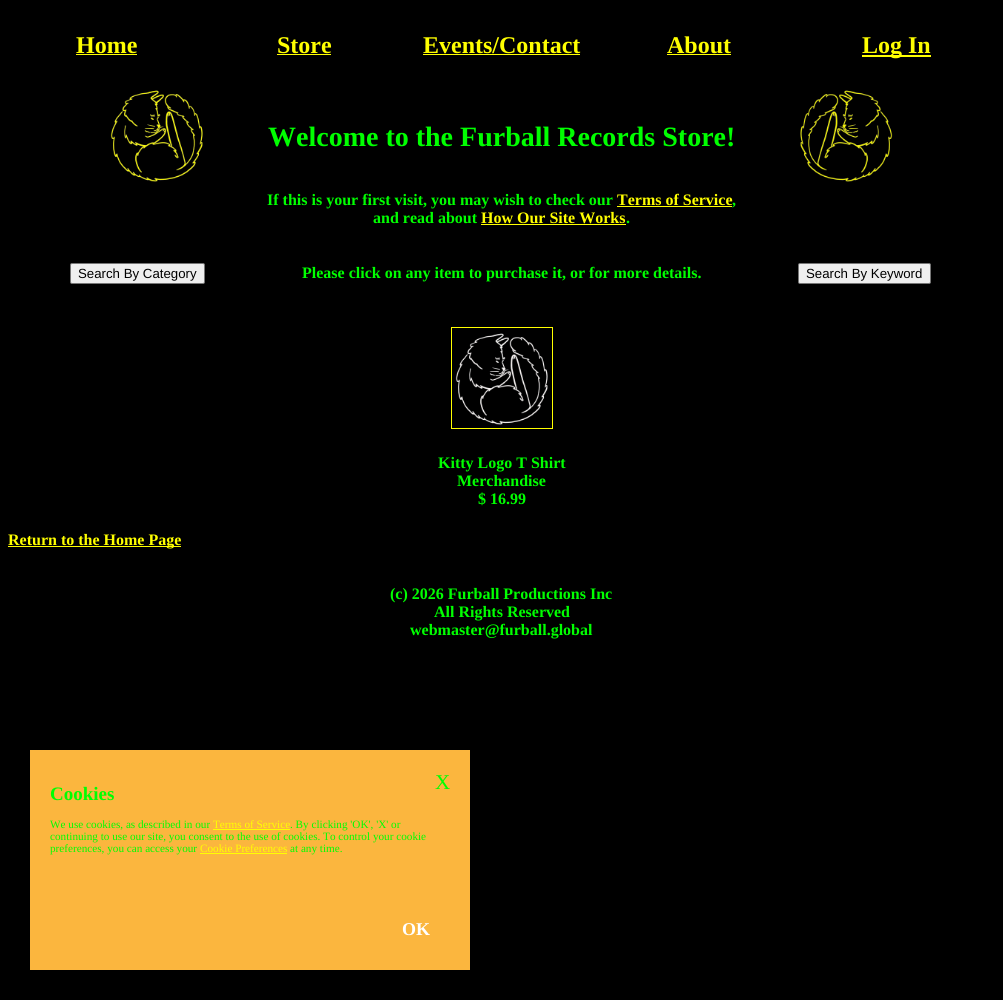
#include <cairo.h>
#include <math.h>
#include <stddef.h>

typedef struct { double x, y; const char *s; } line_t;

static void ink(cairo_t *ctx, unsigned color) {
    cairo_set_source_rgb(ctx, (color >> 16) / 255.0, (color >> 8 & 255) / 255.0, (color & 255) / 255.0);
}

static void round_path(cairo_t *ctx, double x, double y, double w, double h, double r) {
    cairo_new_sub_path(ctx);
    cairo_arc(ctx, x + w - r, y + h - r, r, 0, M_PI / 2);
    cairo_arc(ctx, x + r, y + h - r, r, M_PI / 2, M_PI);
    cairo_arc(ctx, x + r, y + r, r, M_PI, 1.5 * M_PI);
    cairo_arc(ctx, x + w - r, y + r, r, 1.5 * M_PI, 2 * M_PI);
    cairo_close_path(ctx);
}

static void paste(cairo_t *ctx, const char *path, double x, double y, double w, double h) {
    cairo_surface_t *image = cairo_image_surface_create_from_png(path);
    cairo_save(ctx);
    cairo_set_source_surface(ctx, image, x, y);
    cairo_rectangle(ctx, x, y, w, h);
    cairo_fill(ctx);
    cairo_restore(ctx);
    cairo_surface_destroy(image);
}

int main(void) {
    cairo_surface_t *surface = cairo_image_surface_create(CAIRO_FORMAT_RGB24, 1003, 1000);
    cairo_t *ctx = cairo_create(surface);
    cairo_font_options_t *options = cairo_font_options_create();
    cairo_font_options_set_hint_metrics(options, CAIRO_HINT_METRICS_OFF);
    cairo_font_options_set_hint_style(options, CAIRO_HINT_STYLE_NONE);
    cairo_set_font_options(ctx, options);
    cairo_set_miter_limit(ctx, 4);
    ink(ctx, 0x000000);
    cairo_paint(ctx);
    cairo_select_font_face(ctx, "Liberation Serif", CAIRO_FONT_SLANT_NORMAL, CAIRO_FONT_WEIGHT_BOLD);
    cairo_set_font_size(ctx, 24);
    ink(ctx, 0xFFFF00);
    cairo_move_to(ctx, 76, 53);
    cairo_show_text(ctx, "Home");
    cairo_rectangle(ctx, 76, 54, 61, 1);
    cairo_fill(ctx);
    cairo_move_to(ctx, 277, 53);
    cairo_show_text(ctx, "Store");
    cairo_rectangle(ctx, 277, 54, 54, 1);
    cairo_fill(ctx);
    cairo_move_to(ctx, 423, 53);
    cairo_show_text(ctx, "Events/Contact");
    cairo_rectangle(ctx, 423, 54, 157, 1);
    cairo_fill(ctx);
    cairo_move_to(ctx, 667, 53);
    cairo_show_text(ctx, "About");
    cairo_rectangle(ctx, 667, 54, 64, 1);
    cairo_fill(ctx);
    cairo_rectangle(ctx, 862, 55, 69, 2);
    cairo_fill(ctx);
    cairo_move_to(ctx, 862, 53);
    cairo_show_text(ctx, "Log In");
    paste(ctx, "media/1.png", 110, 90, 93, 92);
    cairo_set_font_size(ctx, 28);
    ink(ctx, 0x00FF00);
    cairo_move_to(ctx, 268, 146);
    cairo_show_text(ctx, "Welcome to the Furball Records Store!");
    paste(ctx, "media/2.png", 800, 90, 93, 92);
    cairo_set_font_size(ctx, 16);
    cairo_move_to(ctx, 267, 205);
    cairo_show_text(ctx, "If this is your first visit, you may wish to check our");
    ink(ctx, 0xFFFF00);
    cairo_move_to(ctx, 617, 205);
    cairo_show_text(ctx, "Terms of Service");
    ink(ctx, 0x00FF00);
    cairo_move_to(ctx, 732, 205);
    cairo_show_text(ctx, ",");
    ink(ctx, 0xFFFF00);
    cairo_rectangle(ctx, 617, 206, 115, 1);
    cairo_fill(ctx);
    ink(ctx, 0x00FF00);
    cairo_move_to(ctx, 373, 223);
    cairo_show_text(ctx, "and read about");
    ink(ctx, 0xFFFF00);
    cairo_move_to(ctx, 481, 223);
    cairo_show_text(ctx, "How Our Site Works");
    ink(ctx, 0x00FF00);
    cairo_move_to(ctx, 626, 223);
    cairo_show_text(ctx, ".");
    ink(ctx, 0xFFFF00);
    cairo_rectangle(ctx, 481, 224, 145, 1);
    cairo_fill(ctx);
    ink(ctx, 0xEFEFEF);
    round_path(ctx, 70.5, 263.5, 134, 20, 1.5);
    cairo_fill_preserve(ctx);
    ink(ctx, 0x767676);
    cairo_set_line_width(ctx, 1);
    cairo_stroke(ctx);
    cairo_select_font_face(ctx, "Liberation Sans", CAIRO_FONT_SLANT_NORMAL, CAIRO_FONT_WEIGHT_NORMAL);
    cairo_set_font_size(ctx, 13.25);
    ink(ctx, 0x000000);
    cairo_move_to(ctx, 78, 278);
    cairo_show_text(ctx, "Search By Category");
    cairo_select_font_face(ctx, "Liberation Serif", CAIRO_FONT_SLANT_NORMAL, CAIRO_FONT_WEIGHT_BOLD);
    cairo_set_font_size(ctx, 16);
    ink(ctx, 0x00FF00);
    cairo_move_to(ctx, 302, 278);
    cairo_show_text(ctx, "Please click on any item to purchase it, or for more details.");
    ink(ctx, 0xEFEFEF);
    round_path(ctx, 798.5, 263.5, 132, 20, 1.5);
    cairo_fill_preserve(ctx);
    ink(ctx, 0x767676);
    cairo_stroke(ctx);
    cairo_select_font_face(ctx, "Liberation Sans", CAIRO_FONT_SLANT_NORMAL, CAIRO_FONT_WEIGHT_NORMAL);
    cairo_set_font_size(ctx, 13.25);
    ink(ctx, 0x000000);
    cairo_move_to(ctx, 806, 278);
    cairo_show_text(ctx, "Search By Keyword");
    cairo_rectangle(ctx, 451.5, 327.5, 101, 101);
    ink(ctx, 0xFFFF00);
    cairo_stroke(ctx);
    paste(ctx, "media/3.png", 455, 333, 93, 92);
    cairo_select_font_face(ctx, "Liberation Serif", CAIRO_FONT_SLANT_NORMAL, CAIRO_FONT_WEIGHT_BOLD);
    cairo_set_font_size(ctx, 16);
    ink(ctx, 0x00FF00);
    {
        static const line_t items[] = {
            {438, 468, "Kitty Logo T Shirt"},
            {457, 486, "Merchandise"},
            {478, 504, "$ 16.99"},
        };
        for (size_t i = 0; i < sizeof items / sizeof *items; i++) {
            cairo_move_to(ctx, items[i].x, items[i].y);
            cairo_show_text(ctx, items[i].s);
        }
    }
    ink(ctx, 0xFFFF00);
    cairo_rectangle(ctx, 8, 546, 173, 1);
    cairo_fill(ctx);
    cairo_move_to(ctx, 8, 545);
    cairo_show_text(ctx, "Return to the Home Page");
    ink(ctx, 0x00FF00);
    {
        static const line_t items[] = {
            {390, 599, "(c) 2026 Furball Productions Inc"},
            {434, 617, "All Rights Reserved"},
            {410, 635, "webmaster@furball.global"},
        };
        for (size_t i = 0; i < sizeof items / sizeof *items; i++) {
            cairo_move_to(ctx, items[i].x, items[i].y);
            cairo_show_text(ctx, items[i].s);
        }
    }
    ink(ctx, 0xFBB63E);
    cairo_rectangle(ctx, 30, 750, 440, 220);
    cairo_fill(ctx);
    cairo_select_font_face(ctx, "Liberation Serif", CAIRO_FONT_SLANT_NORMAL, CAIRO_FONT_WEIGHT_NORMAL);
    cairo_set_font_size(ctx, 21);
    ink(ctx, 0x00FF00);
    cairo_move_to(ctx, 435, 789);
    cairo_show_text(ctx, "X");
    cairo_select_font_face(ctx, "Liberation Serif", CAIRO_FONT_SLANT_NORMAL, CAIRO_FONT_WEIGHT_BOLD);
    cairo_set_font_size(ctx, 19);
    cairo_move_to(ctx, 50, 800);
    cairo_show_text(ctx, "Cookies");
    cairo_select_font_face(ctx, "Liberation Serif", CAIRO_FONT_SLANT_NORMAL, CAIRO_FONT_WEIGHT_NORMAL);
    cairo_set_font_size(ctx, 11.2);
    cairo_move_to(ctx, 50, 828);
    cairo_show_text(ctx, "We use cookies, as described in our");
    ink(ctx, 0xFFFF00);
    cairo_move_to(ctx, 213, 828);
    cairo_show_text(ctx, "Terms of Service");
    cairo_rectangle(ctx, 213, 829, 77, 1);
    cairo_fill(ctx);
    ink(ctx, 0x00FF00);
    {
        static const line_t items[] = {
            {290, 828, ". By clicking 'OK', 'X' or"},
            {50, 840, "continuing to use our site, you consent to the use of cookies. To control your cookie"},
            {50, 852, "preferences, you can access your"},
        };
        for (size_t i = 0; i < sizeof items / sizeof *items; i++) {
            cairo_move_to(ctx, items[i].x, items[i].y);
            cairo_show_text(ctx, items[i].s);
        }
    }
    ink(ctx, 0xFFFF00);
    cairo_move_to(ctx, 200, 852);
    cairo_show_text(ctx, "Cookie Preferences");
    cairo_rectangle(ctx, 200, 853, 87, 1);
    cairo_fill(ctx);
    ink(ctx, 0x00FF00);
    cairo_move_to(ctx, 290, 852);
    cairo_show_text(ctx, "at any time.");
    cairo_select_font_face(ctx, "Liberation Serif", CAIRO_FONT_SLANT_NORMAL, CAIRO_FONT_WEIGHT_BOLD);
    cairo_set_font_size(ctx, 18);
    ink(ctx, 0xFFFFFF);
    cairo_move_to(ctx, 402, 935);
    cairo_show_text(ctx, "OK");
    cairo_surface_write_to_png(surface, "image.png");
    cairo_font_options_destroy(options);
    cairo_destroy(ctx);
    cairo_surface_destroy(surface);
    return 0;
}
